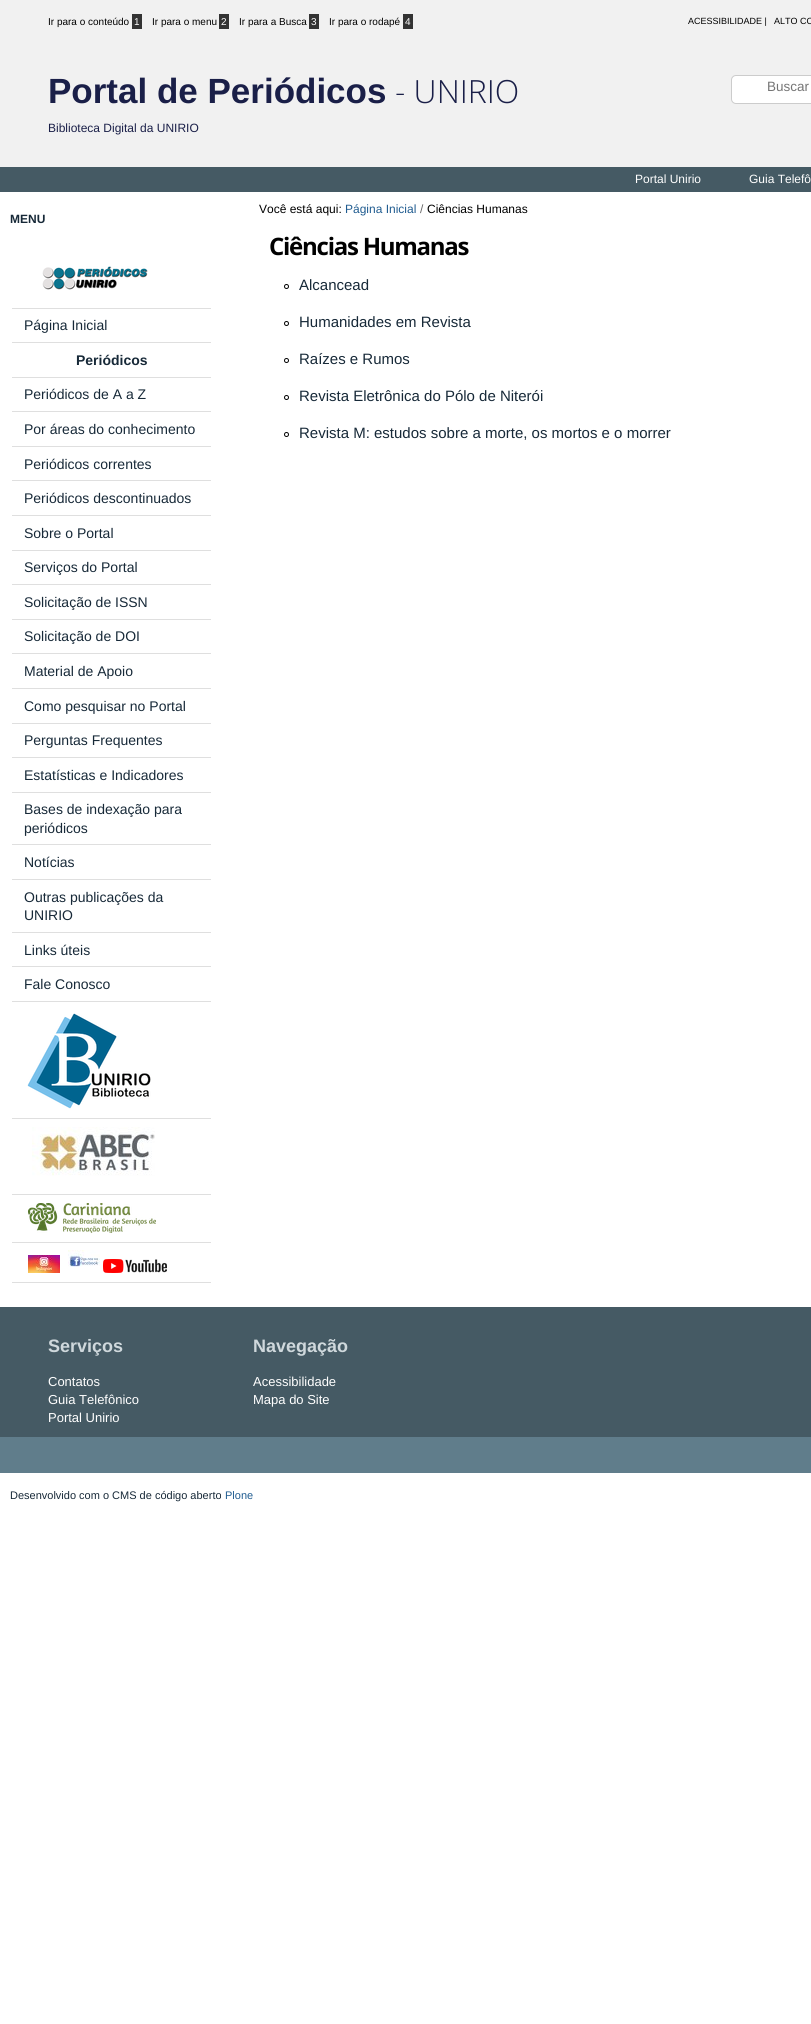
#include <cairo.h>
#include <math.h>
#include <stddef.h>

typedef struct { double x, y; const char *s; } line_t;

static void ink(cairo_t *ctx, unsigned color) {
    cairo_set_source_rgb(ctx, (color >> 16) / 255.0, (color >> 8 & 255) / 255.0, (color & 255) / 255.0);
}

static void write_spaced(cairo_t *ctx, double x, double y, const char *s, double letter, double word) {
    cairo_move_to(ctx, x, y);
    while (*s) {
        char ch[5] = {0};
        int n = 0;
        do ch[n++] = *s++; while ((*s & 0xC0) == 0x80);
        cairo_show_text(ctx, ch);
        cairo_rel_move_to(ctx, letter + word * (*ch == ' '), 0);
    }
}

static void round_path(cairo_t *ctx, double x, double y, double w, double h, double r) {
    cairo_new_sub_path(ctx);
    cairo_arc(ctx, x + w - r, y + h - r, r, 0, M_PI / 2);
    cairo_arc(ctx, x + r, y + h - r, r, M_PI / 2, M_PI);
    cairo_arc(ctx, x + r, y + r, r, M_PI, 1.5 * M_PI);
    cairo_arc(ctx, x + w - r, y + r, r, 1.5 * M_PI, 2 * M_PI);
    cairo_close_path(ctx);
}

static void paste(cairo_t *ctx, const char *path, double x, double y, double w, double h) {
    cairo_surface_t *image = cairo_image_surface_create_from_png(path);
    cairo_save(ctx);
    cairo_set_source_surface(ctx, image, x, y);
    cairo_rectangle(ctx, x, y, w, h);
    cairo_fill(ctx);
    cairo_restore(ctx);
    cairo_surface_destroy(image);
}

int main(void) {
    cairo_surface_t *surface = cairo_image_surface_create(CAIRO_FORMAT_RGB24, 811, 2024);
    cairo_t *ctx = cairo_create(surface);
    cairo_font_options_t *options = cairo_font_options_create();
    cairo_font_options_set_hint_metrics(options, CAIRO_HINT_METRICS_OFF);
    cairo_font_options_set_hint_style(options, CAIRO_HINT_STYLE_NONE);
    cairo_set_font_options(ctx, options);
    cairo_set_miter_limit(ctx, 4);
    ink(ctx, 0xFFFFFF);
    cairo_paint(ctx);
    ink(ctx, 0xF1F1F1);
    cairo_rectangle(ctx, 0, 0, 811, 167);
    cairo_fill(ctx);
    cairo_select_font_face(ctx, "Liberation Sans", CAIRO_FONT_SLANT_NORMAL, CAIRO_FONT_WEIGHT_NORMAL);
    cairo_set_font_size(ctx, 10);
    ink(ctx, 0x000000);
    cairo_move_to(ctx, 48, 25);
    cairo_show_text(ctx, "Ir para o conteúdo");
    ink(ctx, 0x333333);
    cairo_rectangle(ctx, 132, 14, 10, 15);
    cairo_fill(ctx);
    ink(ctx, 0xFFFFFF);
    cairo_move_to(ctx, 134, 25);
    cairo_show_text(ctx, "1");
    ink(ctx, 0x000000);
    cairo_move_to(ctx, 152, 25);
    cairo_show_text(ctx, "Ir para o menu");
    ink(ctx, 0x333333);
    cairo_rectangle(ctx, 219, 14, 10, 15);
    cairo_fill(ctx);
    ink(ctx, 0xFFFFFF);
    cairo_move_to(ctx, 221, 25);
    cairo_show_text(ctx, "2");
    ink(ctx, 0x000000);
    cairo_move_to(ctx, 239, 25);
    cairo_show_text(ctx, "Ir para a Busca");
    ink(ctx, 0x333333);
    cairo_rectangle(ctx, 309, 14, 10, 15);
    cairo_fill(ctx);
    ink(ctx, 0xFFFFFF);
    cairo_move_to(ctx, 311, 25);
    cairo_show_text(ctx, "3");
    ink(ctx, 0x000000);
    cairo_move_to(ctx, 329, 25);
    cairo_show_text(ctx, "Ir para o rodapé");
    ink(ctx, 0x333333);
    cairo_rectangle(ctx, 403, 14, 10, 15);
    cairo_fill(ctx);
    ink(ctx, 0xFFFFFF);
    cairo_move_to(ctx, 405, 25);
    cairo_show_text(ctx, "4");
    cairo_set_font_size(ctx, 9);
    ink(ctx, 0x000000);
    cairo_move_to(ctx, 688, 24);
    cairo_show_text(ctx, "ACESSIBILIDADE |");
    cairo_move_to(ctx, 774, 24);
    cairo_show_text(ctx, "ALTO CO");
    cairo_select_font_face(ctx, "Liberation Sans", CAIRO_FONT_SLANT_NORMAL, CAIRO_FONT_WEIGHT_BOLD);
    cairo_set_font_size(ctx, 35);
    ink(ctx, 0x1A1F48);
    cairo_move_to(ctx, 48, 103);
    cairo_show_text(ctx, "Portal de Periódicos");
    cairo_select_font_face(ctx, "Open Sans Light", CAIRO_FONT_SLANT_NORMAL, CAIRO_FONT_WEIGHT_NORMAL);
    cairo_set_font_size(ctx, 32);
    cairo_move_to(ctx, 395, 103);
    cairo_show_text(ctx, "- UNIRIO");
    cairo_select_font_face(ctx, "Liberation Sans", CAIRO_FONT_SLANT_NORMAL, CAIRO_FONT_WEIGHT_NORMAL);
    cairo_set_font_size(ctx, 12);
    cairo_move_to(ctx, 48, 132);
    cairo_show_text(ctx, "Biblioteca Digital da UNIRIO");
    ink(ctx, 0xFFFFFF);
    round_path(ctx, 731.5, 75.5, 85, 28, 4.5);
    cairo_fill_preserve(ctx);
    ink(ctx, 0xCCCCCC);
    cairo_set_line_width(ctx, 1);
    cairo_stroke(ctx);
    cairo_set_font_size(ctx, 13.5);
    ink(ctx, 0x757575);
    cairo_move_to(ctx, 767, 91);
    cairo_show_text(ctx, "Buscar");
    ink(ctx, 0x455A64);
    cairo_rectangle(ctx, 0, 167, 811, 25);
    cairo_fill(ctx);
    cairo_set_font_size(ctx, 12);
    ink(ctx, 0xFFFFFF);
    cairo_move_to(ctx, 635, 183);
    cairo_show_text(ctx, "Portal Unirio");
    cairo_move_to(ctx, 749, 183);
    cairo_show_text(ctx, "Guia Telefô");
    cairo_select_font_face(ctx, "Liberation Sans", CAIRO_FONT_SLANT_NORMAL, CAIRO_FONT_WEIGHT_BOLD);
    ink(ctx, 0x172938);
    cairo_move_to(ctx, 10, 223);
    cairo_show_text(ctx, "MENU");
    ink(ctx, 0xDFDFDF);
    cairo_rectangle(ctx, 12, 308, 199, 1);
    cairo_fill(ctx);
    paste(ctx, "media/1.png", 42, 266, 106, 24);
    cairo_rectangle(ctx, 12, 342, 199, 1);
    cairo_fill(ctx);
    cairo_select_font_face(ctx, "Liberation Sans", CAIRO_FONT_SLANT_NORMAL, CAIRO_FONT_WEIGHT_NORMAL);
    cairo_set_font_size(ctx, 14);
    ink(ctx, 0x172938);
    cairo_move_to(ctx, 24, 330);
    cairo_show_text(ctx, "Página Inicial");
    ink(ctx, 0xDFDFDF);
    cairo_rectangle(ctx, 12, 377, 199, 1);
    cairo_fill(ctx);
    cairo_select_font_face(ctx, "Liberation Sans", CAIRO_FONT_SLANT_NORMAL, CAIRO_FONT_WEIGHT_BOLD);
    ink(ctx, 0x172938);
    cairo_move_to(ctx, 76, 365);
    cairo_show_text(ctx, "Periódicos");
    ink(ctx, 0xDFDFDF);
    cairo_rectangle(ctx, 12, 411, 199, 1);
    cairo_fill(ctx);
    cairo_select_font_face(ctx, "Liberation Sans", CAIRO_FONT_SLANT_NORMAL, CAIRO_FONT_WEIGHT_NORMAL);
    ink(ctx, 0x172938);
    cairo_move_to(ctx, 24, 399);
    cairo_show_text(ctx, "Periódicos de A a Z");
    ink(ctx, 0xDFDFDF);
    cairo_rectangle(ctx, 12, 446, 199, 1);
    cairo_fill(ctx);
    ink(ctx, 0x172938);
    cairo_move_to(ctx, 24, 434);
    cairo_show_text(ctx, "Por áreas do conhecimento");
    ink(ctx, 0xDFDFDF);
    cairo_rectangle(ctx, 12, 480, 199, 1);
    cairo_fill(ctx);
    ink(ctx, 0x172938);
    cairo_move_to(ctx, 24, 469);
    cairo_show_text(ctx, "Periódicos correntes");
    ink(ctx, 0xDFDFDF);
    cairo_rectangle(ctx, 12, 515, 199, 1);
    cairo_fill(ctx);
    ink(ctx, 0x172938);
    cairo_move_to(ctx, 24, 503);
    cairo_show_text(ctx, "Periódicos descontinuados");
    ink(ctx, 0xDFDFDF);
    cairo_rectangle(ctx, 12, 550, 199, 1);
    cairo_fill(ctx);
    ink(ctx, 0x172938);
    cairo_move_to(ctx, 24, 538);
    cairo_show_text(ctx, "Sobre o Portal");
    ink(ctx, 0xDFDFDF);
    cairo_rectangle(ctx, 12, 584, 199, 1);
    cairo_fill(ctx);
    ink(ctx, 0x172938);
    cairo_move_to(ctx, 24, 572);
    cairo_show_text(ctx, "Serviços do Portal");
    ink(ctx, 0xDFDFDF);
    cairo_rectangle(ctx, 12, 619, 199, 1);
    cairo_fill(ctx);
    ink(ctx, 0x172938);
    cairo_move_to(ctx, 24, 607);
    cairo_show_text(ctx, "Solicitação de ISSN");
    ink(ctx, 0xDFDFDF);
    cairo_rectangle(ctx, 12, 653, 199, 1);
    cairo_fill(ctx);
    ink(ctx, 0x172938);
    cairo_move_to(ctx, 24, 641);
    cairo_show_text(ctx, "Solicitação de DOI");
    ink(ctx, 0xDFDFDF);
    cairo_rectangle(ctx, 12, 688, 199, 1);
    cairo_fill(ctx);
    ink(ctx, 0x172938);
    cairo_move_to(ctx, 24, 676);
    cairo_show_text(ctx, "Material de Apoio");
    ink(ctx, 0xDFDFDF);
    cairo_rectangle(ctx, 12, 723, 199, 1);
    cairo_fill(ctx);
    ink(ctx, 0x172938);
    cairo_move_to(ctx, 24, 711);
    cairo_show_text(ctx, "Como pesquisar no Portal");
    ink(ctx, 0xDFDFDF);
    cairo_rectangle(ctx, 12, 757, 199, 1);
    cairo_fill(ctx);
    ink(ctx, 0x172938);
    cairo_move_to(ctx, 24, 745);
    cairo_show_text(ctx, "Perguntas Frequentes");
    ink(ctx, 0xDFDFDF);
    cairo_rectangle(ctx, 12, 792, 199, 1);
    cairo_fill(ctx);
    ink(ctx, 0x172938);
    cairo_move_to(ctx, 24, 780);
    cairo_show_text(ctx, "Estatísticas e Indicadores");
    ink(ctx, 0xDFDFDF);
    cairo_rectangle(ctx, 12, 844, 199, 1);
    cairo_fill(ctx);
    ink(ctx, 0x172938);
    cairo_move_to(ctx, 24, 814);
    cairo_show_text(ctx, "Bases de indexação para");
    cairo_move_to(ctx, 24, 833);
    cairo_show_text(ctx, "periódicos");
    ink(ctx, 0xDFDFDF);
    cairo_rectangle(ctx, 12, 879, 199, 1);
    cairo_fill(ctx);
    ink(ctx, 0x172938);
    cairo_move_to(ctx, 24, 867);
    cairo_show_text(ctx, "Notícias");
    ink(ctx, 0xDFDFDF);
    cairo_rectangle(ctx, 12, 932, 199, 1);
    cairo_fill(ctx);
    ink(ctx, 0x172938);
    cairo_move_to(ctx, 24, 902);
    cairo_show_text(ctx, "Outras publicações da");
    cairo_move_to(ctx, 24, 920);
    cairo_show_text(ctx, "UNIRIO");
    ink(ctx, 0xDFDFDF);
    cairo_rectangle(ctx, 12, 966, 199, 1);
    cairo_fill(ctx);
    ink(ctx, 0x172938);
    cairo_move_to(ctx, 24, 955);
    cairo_show_text(ctx, "Links úteis");
    ink(ctx, 0xDFDFDF);
    cairo_rectangle(ctx, 12, 1001, 199, 1);
    cairo_fill(ctx);
    ink(ctx, 0x172938);
    cairo_move_to(ctx, 24, 989);
    cairo_show_text(ctx, "Fale Conosco");
    ink(ctx, 0xDFDFDF);
    cairo_rectangle(ctx, 12, 1118, 199, 1);
    cairo_fill(ctx);
    paste(ctx, "media/2.png", 27, 1013, 124, 96);
    cairo_rectangle(ctx, 12, 1194, 199, 1);
    cairo_fill(ctx);
    paste(ctx, "media/3.png", 32, 1127, 123, 49);
    cairo_rectangle(ctx, 12, 1242, 199, 1);
    cairo_fill(ctx);
    paste(ctx, "media/4.png", 28, 1203, 128, 30);
    cairo_rectangle(ctx, 12, 1282, 199, 1);
    cairo_fill(ctx);
    paste(ctx, "media/5.png", 28, 1255, 32, 18);
    paste(ctx, "media/6.png", 68, 1250, 32, 17);
    paste(ctx, "media/7.png", 103, 1259, 64, 14);
    cairo_set_font_size(ctx, 12);
    ink(ctx, 0x000000);
    cairo_move_to(ctx, 259, 213);
    cairo_show_text(ctx, "Você está aqui:");
    ink(ctx, 0x205C90);
    cairo_move_to(ctx, 345, 213);
    cairo_show_text(ctx, "Página Inicial");
    ink(ctx, 0x666666);
    cairo_move_to(ctx, 420, 213);
    cairo_show_text(ctx, "/");
    ink(ctx, 0x000000);
    cairo_move_to(ctx, 427, 213);
    cairo_show_text(ctx, "Ciências Humanas");
    cairo_select_font_face(ctx, "Open Sans", CAIRO_FONT_SLANT_NORMAL, CAIRO_FONT_WEIGHT_BOLD);
    cairo_set_font_size(ctx, 24);
    write_spaced(ctx, 269, 255, "Ciências Humanas", -1.25, 0);
    cairo_new_path(ctx);
    cairo_arc(ctx, 286.5, 286.5, 2, 0, 2 * M_PI);
    cairo_stroke(ctx);
    cairo_select_font_face(ctx, "Liberation Sans", CAIRO_FONT_SLANT_NORMAL, CAIRO_FONT_WEIGHT_NORMAL);
    cairo_set_font_size(ctx, 15);
    ink(ctx, 0x172938);
    cairo_move_to(ctx, 299, 290);
    cairo_show_text(ctx, "Alcancead");
    cairo_new_path(ctx);
    cairo_arc(ctx, 286.5, 323.5, 2, 0, 2 * M_PI);
    ink(ctx, 0x000000);
    cairo_stroke(ctx);
    ink(ctx, 0x172938);
    cairo_move_to(ctx, 299, 327);
    cairo_show_text(ctx, "Humanidades em Revista");
    cairo_new_path(ctx);
    cairo_arc(ctx, 286.5, 360.5, 2, 0, 2 * M_PI);
    ink(ctx, 0x000000);
    cairo_stroke(ctx);
    ink(ctx, 0x172938);
    cairo_move_to(ctx, 299, 364);
    cairo_show_text(ctx, "Raízes e Rumos");
    cairo_new_path(ctx);
    cairo_arc(ctx, 286.5, 397.5, 2, 0, 2 * M_PI);
    ink(ctx, 0x000000);
    cairo_stroke(ctx);
    ink(ctx, 0x172938);
    cairo_move_to(ctx, 299, 401);
    cairo_show_text(ctx, "Revista Eletrônica do Pólo de Niterói");
    cairo_new_path(ctx);
    cairo_arc(ctx, 286.5, 434.5, 2, 0, 2 * M_PI);
    ink(ctx, 0x000000);
    cairo_stroke(ctx);
    ink(ctx, 0x172938);
    cairo_move_to(ctx, 299, 438);
    cairo_show_text(ctx, "Revista M: estudos sobre a morte, os mortos e o morrer");
    ink(ctx, 0x455A64);
    cairo_rectangle(ctx, 0, 1307, 811, 130);
    cairo_fill(ctx);
    cairo_select_font_face(ctx, "Liberation Sans", CAIRO_FONT_SLANT_NORMAL, CAIRO_FONT_WEIGHT_BOLD);
    cairo_set_font_size(ctx, 18);
    ink(ctx, 0xCFD8DC);
    cairo_move_to(ctx, 48, 1352);
    cairo_show_text(ctx, "Serviços");
    cairo_select_font_face(ctx, "Liberation Sans", CAIRO_FONT_SLANT_NORMAL, CAIRO_FONT_WEIGHT_NORMAL);
    cairo_set_font_size(ctx, 13);
    ink(ctx, 0xFFFFFF);
    {
        static const line_t items[] = {
            {48, 1386, "Contatos"},
            {48, 1404, "Guia Telefônico"},
            {48, 1422, "Portal Unirio"},
        };
        for (size_t i = 0; i < sizeof items / sizeof *items; i++) {
            cairo_move_to(ctx, items[i].x, items[i].y);
            cairo_show_text(ctx, items[i].s);
        }
    }
    cairo_select_font_face(ctx, "Liberation Sans", CAIRO_FONT_SLANT_NORMAL, CAIRO_FONT_WEIGHT_BOLD);
    cairo_set_font_size(ctx, 18);
    ink(ctx, 0xCFD8DC);
    cairo_move_to(ctx, 253, 1352);
    cairo_show_text(ctx, "Navegação");
    cairo_select_font_face(ctx, "Liberation Sans", CAIRO_FONT_SLANT_NORMAL, CAIRO_FONT_WEIGHT_NORMAL);
    cairo_set_font_size(ctx, 13);
    ink(ctx, 0xFFFFFF);
    cairo_move_to(ctx, 253, 1386);
    cairo_show_text(ctx, "Acessibilidade");
    cairo_move_to(ctx, 253, 1404);
    cairo_show_text(ctx, "Mapa do Site");
    ink(ctx, 0x607D8B);
    cairo_rectangle(ctx, 0, 1437, 811, 36);
    cairo_fill(ctx);
    cairo_set_font_size(ctx, 11);
    ink(ctx, 0x172938);
    cairo_move_to(ctx, 10, 1499);
    cairo_show_text(ctx, "Desenvolvido com o CMS de código aberto");
    ink(ctx, 0x205C90);
    cairo_move_to(ctx, 225, 1499);
    cairo_show_text(ctx, "Plone");
    cairo_surface_write_to_png(surface, "image.png");
    cairo_font_options_destroy(options);
    cairo_destroy(ctx);
    cairo_surface_destroy(surface);
    return 0;
}
